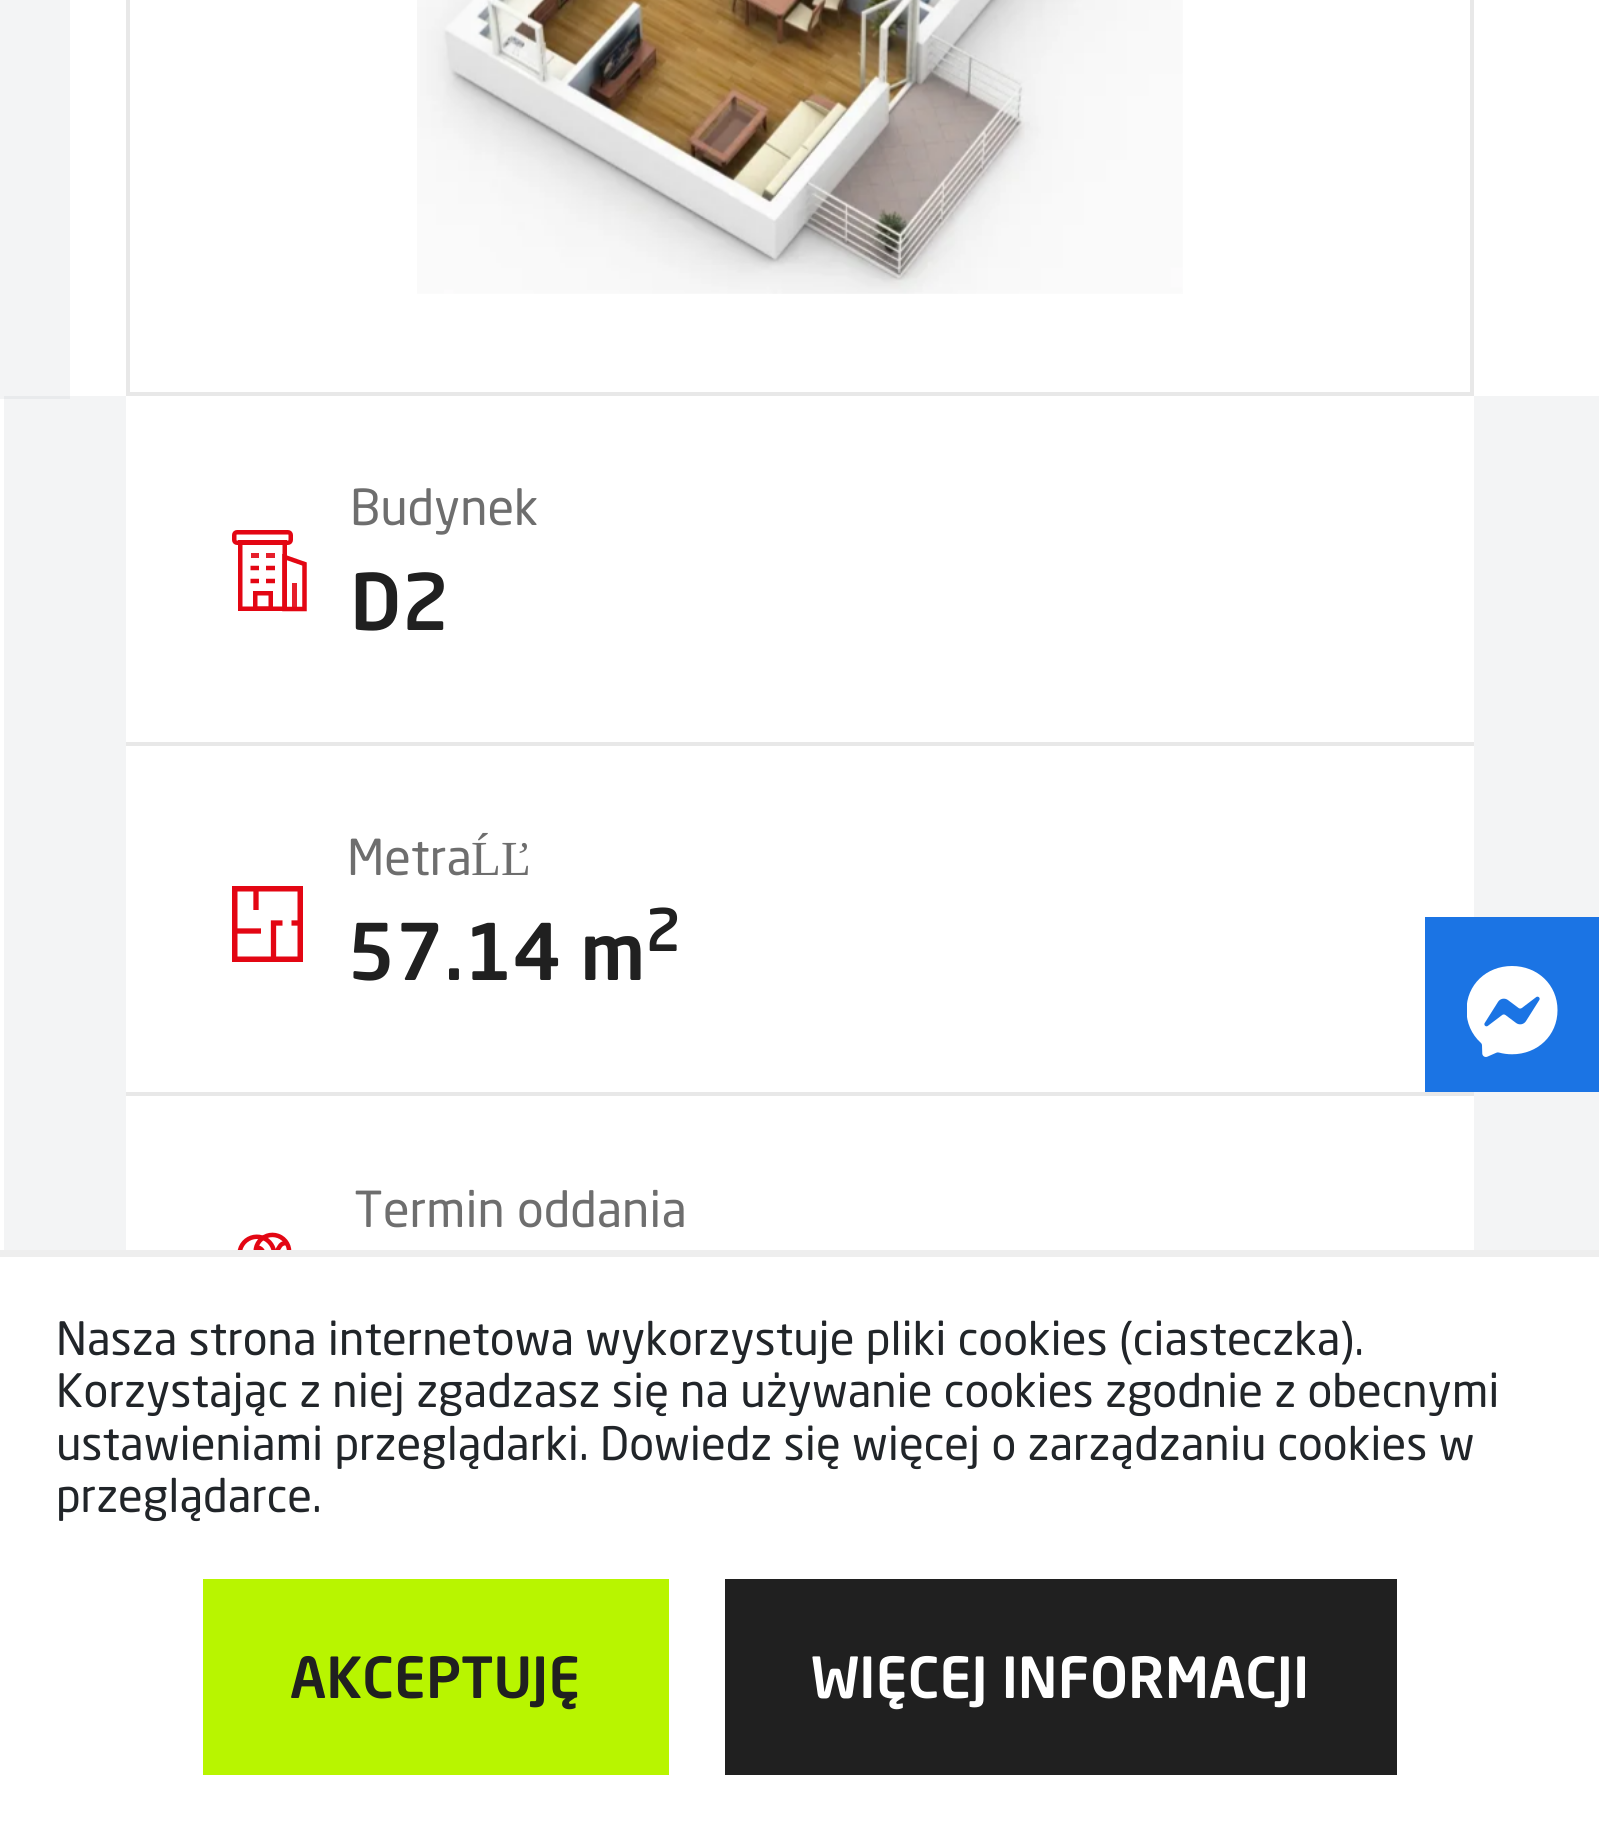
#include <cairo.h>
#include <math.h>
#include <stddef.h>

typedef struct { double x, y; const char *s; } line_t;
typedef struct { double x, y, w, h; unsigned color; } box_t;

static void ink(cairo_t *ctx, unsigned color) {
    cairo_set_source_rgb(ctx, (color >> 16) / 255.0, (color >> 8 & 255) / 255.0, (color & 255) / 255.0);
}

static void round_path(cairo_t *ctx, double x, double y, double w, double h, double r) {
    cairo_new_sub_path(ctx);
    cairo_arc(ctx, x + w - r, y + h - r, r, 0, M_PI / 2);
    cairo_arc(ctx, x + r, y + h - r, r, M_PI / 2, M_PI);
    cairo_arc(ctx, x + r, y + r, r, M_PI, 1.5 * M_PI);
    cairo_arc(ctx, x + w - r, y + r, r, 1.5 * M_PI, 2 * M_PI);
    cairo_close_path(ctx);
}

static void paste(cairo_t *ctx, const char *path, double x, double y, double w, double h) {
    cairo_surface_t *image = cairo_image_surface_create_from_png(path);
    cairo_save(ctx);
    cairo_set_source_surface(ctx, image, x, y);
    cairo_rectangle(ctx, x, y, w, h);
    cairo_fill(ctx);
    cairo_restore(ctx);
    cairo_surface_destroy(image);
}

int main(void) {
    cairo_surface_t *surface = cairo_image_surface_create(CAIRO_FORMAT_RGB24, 1599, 1830);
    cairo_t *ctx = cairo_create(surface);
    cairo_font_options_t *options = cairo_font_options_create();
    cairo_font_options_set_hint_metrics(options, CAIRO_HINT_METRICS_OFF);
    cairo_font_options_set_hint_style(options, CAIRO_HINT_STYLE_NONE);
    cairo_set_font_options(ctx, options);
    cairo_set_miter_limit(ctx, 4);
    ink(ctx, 0xFFFFFF);
    cairo_paint(ctx);
    {
        static const box_t items[] = {
            {4, 396, 1595, 854, 0xF3F4F5},
            {0, 0, 70, 399, 0xF3F4F5},
            {4, 396, 66, 3, 0xE8EAEC},
        };
        for (size_t i = 0; i < sizeof items / sizeof *items; i++) {
            ink(ctx, items[i].color);
            cairo_rectangle(ctx, items[i].x, items[i].y, items[i].w, items[i].h);
            cairo_fill(ctx);
        }
    }
    cairo_rectangle(ctx, 128, -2, 1344, 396);
    ink(ctx, 0xE8E8E8);
    cairo_set_line_width(ctx, 4);
    cairo_stroke(ctx);
    paste(ctx, "media/1.png", 417, 0, 766, 294);
    ink(ctx, 0xFFFFFF);
    cairo_rectangle(ctx, 126, 396, 1348, 346);
    cairo_fill(ctx);
    ink(ctx, 0xE8E8E8);
    cairo_rectangle(ctx, 126, 742, 1348, 4);
    cairo_fill(ctx);
    cairo_rectangle(ctx, 240.25, 542.25, 44.5, 66.5);
    ink(ctx, 0xE30613);
    cairo_set_line_width(ctx, 4.5);
    cairo_stroke(ctx);
    round_path(ctx, 234.25, 532.25, 56.5, 10.5, 2.75);
    cairo_stroke(ctx);
    ink(ctx, 0xE61F2B);
    cairo_rectangle(ctx, 251, 553, 8, 5);
    cairo_fill(ctx);
    cairo_rectangle(ctx, 266, 553, 9, 5);
    cairo_fill(ctx);
    cairo_new_path(ctx);
    cairo_move_to(ctx, 304.5, 609);
    cairo_line_to(ctx, 284.5, 609);
    cairo_line_to(ctx, 284.5, 557);
    cairo_line_to(ctx, 304.5, 564);
    cairo_close_path(ctx);
    ink(ctx, 0xE30613);
    cairo_stroke(ctx);
    cairo_new_path(ctx);
    cairo_move_to(ctx, 259, 568);
    cairo_line_to(ctx, 250.5, 568);
    cairo_move_to(ctx, 275, 568);
    cairo_line_to(ctx, 266, 568);
    cairo_move_to(ctx, 259, 581);
    cairo_line_to(ctx, 250.5, 581);
    cairo_move_to(ctx, 275, 581);
    cairo_line_to(ctx, 266, 581);
    cairo_stroke(ctx);
    cairo_rectangle(ctx, 255.25, 593.25, 15.5, 15.5);
    cairo_stroke(ctx);
    cairo_set_source_rgba(ctx, 0.89, 0.024, 0.075, 0.9);
    cairo_rectangle(ctx, 292, 583, 5, 26);
    cairo_fill(ctx);
    cairo_select_font_face(ctx, "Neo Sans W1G", CAIRO_FONT_SLANT_NORMAL, CAIRO_FONT_WEIGHT_NORMAL);
    cairo_set_font_size(ctx, 49);
    ink(ctx, 0x6E6E6E);
    cairo_move_to(ctx, 350, 525);
    cairo_show_text(ctx, "Budynek");
    cairo_select_font_face(ctx, "Neo Sans W1G Medium", CAIRO_FONT_SLANT_NORMAL, CAIRO_FONT_WEIGHT_NORMAL);
    cairo_set_font_size(ctx, 77);
    ink(ctx, 0x202020);
    cairo_move_to(ctx, 350, 630);
    cairo_show_text(ctx, "D2");
    ink(ctx, 0xFFFFFF);
    cairo_rectangle(ctx, 126, 746, 1348, 346);
    cairo_fill(ctx);
    ink(ctx, 0xE8E8E8);
    cairo_rectangle(ctx, 126, 1092, 1348, 4);
    cairo_fill(ctx);
    cairo_rectangle(ctx, 234.75, 888.75, 65.5, 70.5);
    ink(ctx, 0xE30613);
    cairo_set_line_width(ctx, 5.5);
    cairo_stroke(ctx);
    cairo_new_path(ctx);
    cairo_move_to(ctx, 261, 931);
    cairo_line_to(ctx, 235, 931);
    cairo_move_to(ctx, 256, 910);
    cairo_line_to(ctx, 256, 889);
    cairo_set_line_width(ctx, 5.3);
    cairo_stroke(ctx);
    cairo_new_path(ctx);
    cairo_move_to(ctx, 273.5, 959);
    cairo_line_to(ctx, 273.5, 923);
    cairo_line_to(ctx, 282.5, 923);
    cairo_move_to(ctx, 291.5, 923);
    cairo_line_to(ctx, 300.5, 923);
    cairo_stroke(ctx);
    cairo_select_font_face(ctx, "Neo Sans W1G", CAIRO_FONT_SLANT_NORMAL, CAIRO_FONT_WEIGHT_NORMAL);
    cairo_set_font_size(ctx, 49);
    ink(ctx, 0x6E6E6E);
    cairo_move_to(ctx, 347, 875);
    cairo_show_text(ctx, "Metra");
    cairo_select_font_face(ctx, "Liberation Serif", CAIRO_FONT_SLANT_NORMAL, CAIRO_FONT_WEIGHT_NORMAL);
    cairo_move_to(ctx, 471, 875);
    cairo_show_text(ctx, "ĹĽ");
    cairo_select_font_face(ctx, "Neo Sans W1G Medium", CAIRO_FONT_SLANT_NORMAL, CAIRO_FONT_WEIGHT_NORMAL);
    cairo_set_font_size(ctx, 77);
    ink(ctx, 0x202020);
    cairo_move_to(ctx, 347, 980);
    cairo_show_text(ctx, "57.14 m");
    cairo_set_font_size(ctx, 58);
    cairo_move_to(ctx, 645, 951);
    cairo_show_text(ctx, "2");
    ink(ctx, 0xFFFFFF);
    cairo_rectangle(ctx, 126, 1096, 1348, 154);
    cairo_fill(ctx);
    cairo_select_font_face(ctx, "Neo Sans W1G", CAIRO_FONT_SLANT_NORMAL, CAIRO_FONT_WEIGHT_NORMAL);
    cairo_set_font_size(ctx, 49);
    ink(ctx, 0x6E6E6E);
    cairo_move_to(ctx, 354, 1227);
    cairo_show_text(ctx, "Termin oddania");
    paste(ctx, "media/2.png", 237, 1232, 55, 18);
    ink(ctx, 0x1B74E4);
    cairo_rectangle(ctx, 1425, 917, 174, 175);
    cairo_fill(ctx);
    paste(ctx, "media/3.png", 1467, 966, 91, 91);
    ink(ctx, 0xEEEEEE);
    cairo_rectangle(ctx, 0, 1250, 1599, 7);
    cairo_fill(ctx);
    cairo_set_font_size(ctx, 45.5);
    ink(ctx, 0x212529);
    {
        static const line_t items[] = {
            {56, 1355, "Nasza strona internetowa wykorzystuje pliki cookies (ciasteczka)."},
            {56, 1407, "Korzystając z niej zgadzasz się na używanie cookies zgodnie z obecnymi"},
            {56, 1460, "ustawieniami przeglądarki. Dowiedz się więcej o zarządzaniu cookies w"},
            {56, 1512, "przeglądarce."},
        };
        for (size_t i = 0; i < sizeof items / sizeof *items; i++) {
            cairo_move_to(ctx, items[i].x, items[i].y);
            cairo_show_text(ctx, items[i].s);
        }
    }
    ink(ctx, 0xB8F500);
    cairo_rectangle(ctx, 203, 1579, 466, 196);
    cairo_fill(ctx);
    cairo_select_font_face(ctx, "Neo Sans W1G Medium", CAIRO_FONT_SLANT_NORMAL, CAIRO_FONT_WEIGHT_NORMAL);
    cairo_set_font_size(ctx, 56);
    ink(ctx, 0x202020);
    cairo_move_to(ctx, 290, 1698);
    cairo_show_text(ctx, "AKCEPTUJĘ");
    cairo_rectangle(ctx, 725, 1579, 672, 196);
    cairo_fill(ctx);
    ink(ctx, 0xFFFFFF);
    cairo_move_to(ctx, 811, 1698);
    cairo_show_text(ctx, "WIĘCEJ INFORMACJI");
    cairo_surface_write_to_png(surface, "image.png");
    cairo_font_options_destroy(options);
    cairo_destroy(ctx);
    cairo_surface_destroy(surface);
    return 0;
}
